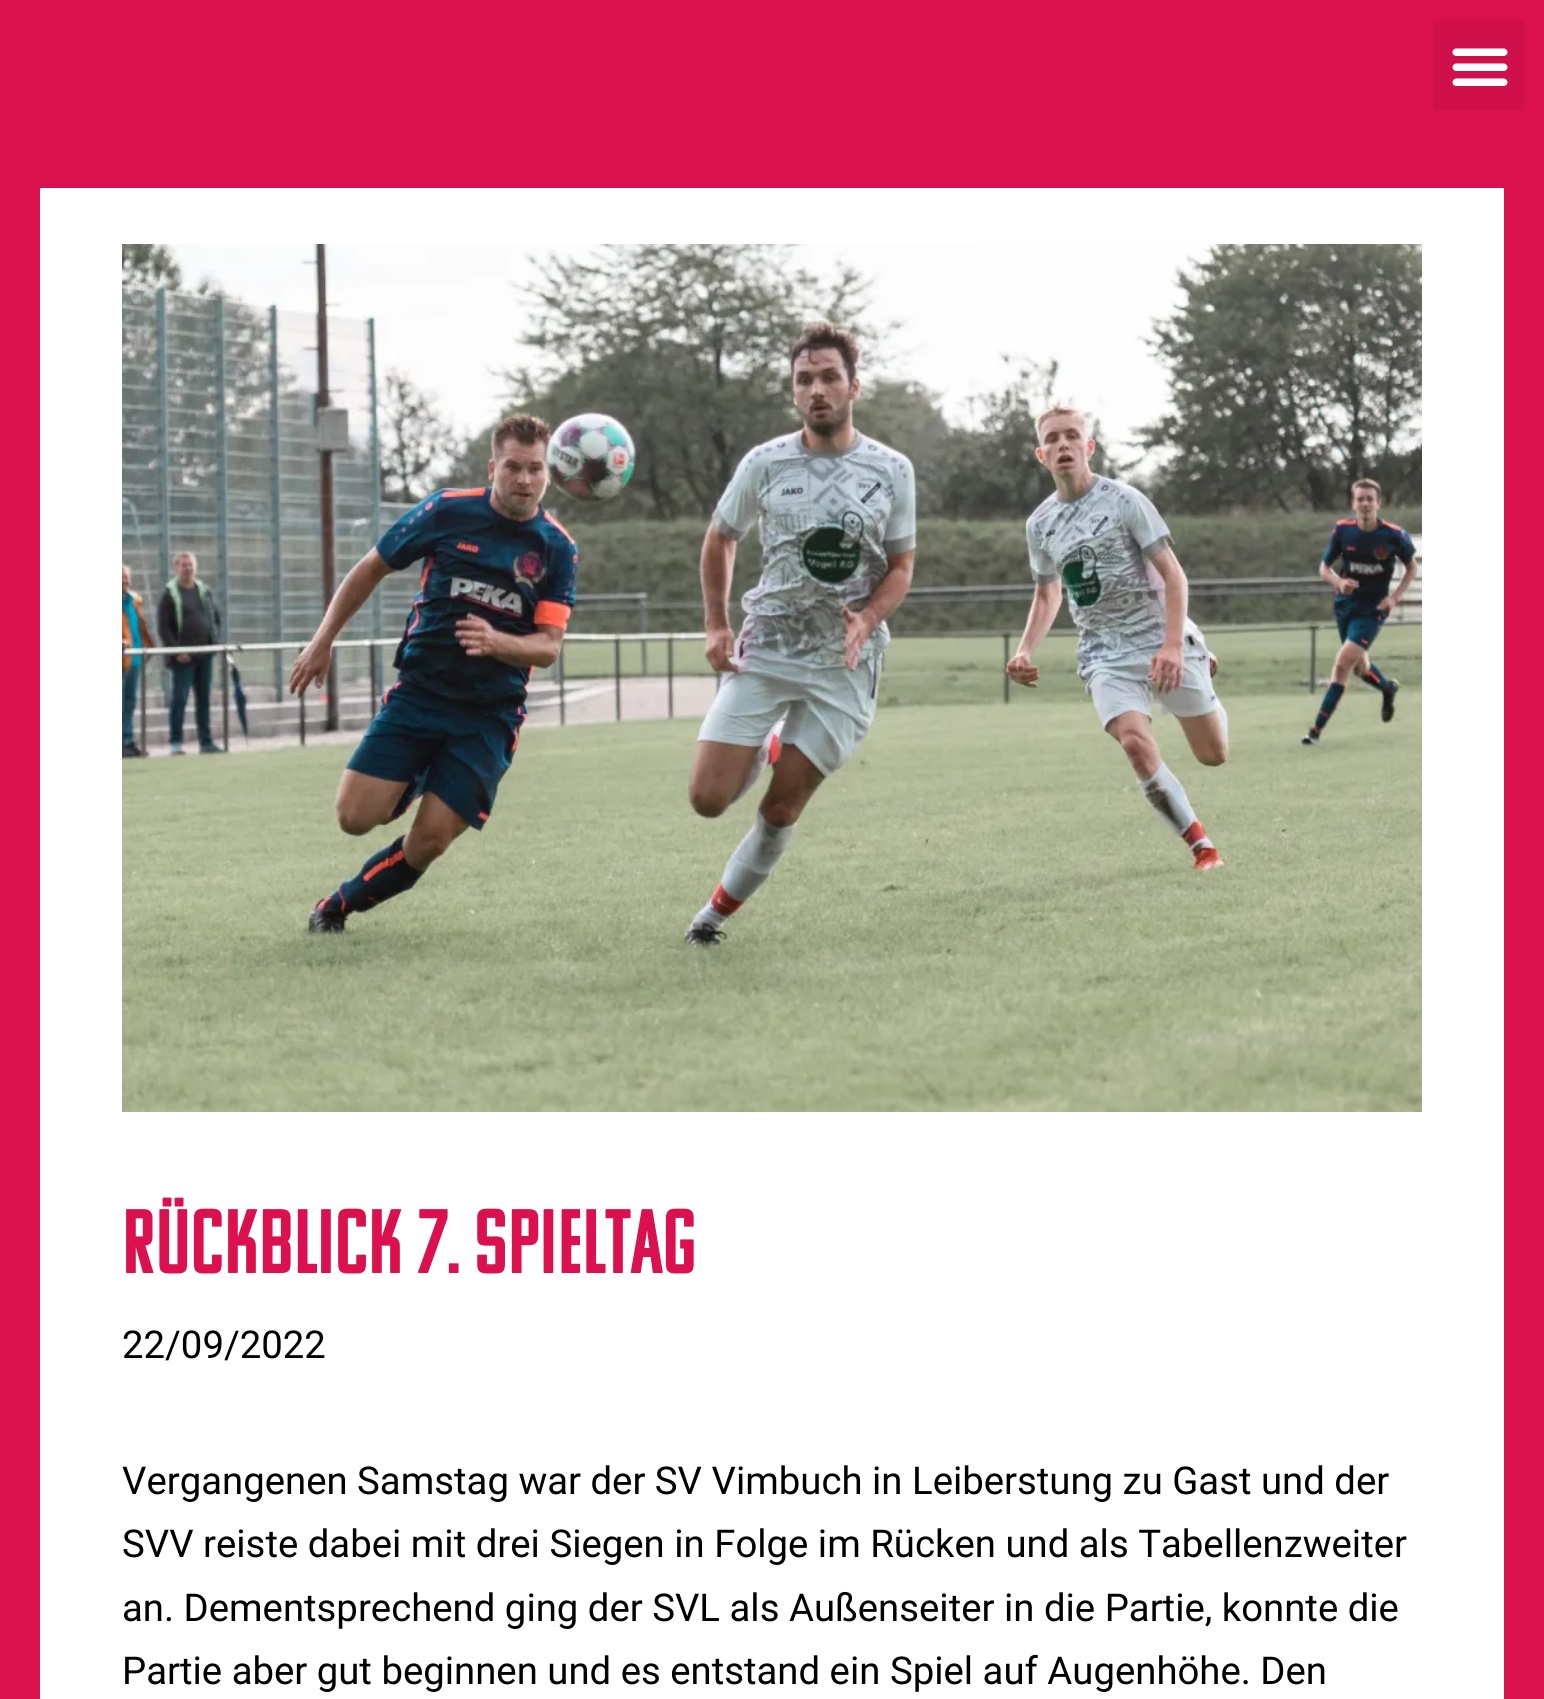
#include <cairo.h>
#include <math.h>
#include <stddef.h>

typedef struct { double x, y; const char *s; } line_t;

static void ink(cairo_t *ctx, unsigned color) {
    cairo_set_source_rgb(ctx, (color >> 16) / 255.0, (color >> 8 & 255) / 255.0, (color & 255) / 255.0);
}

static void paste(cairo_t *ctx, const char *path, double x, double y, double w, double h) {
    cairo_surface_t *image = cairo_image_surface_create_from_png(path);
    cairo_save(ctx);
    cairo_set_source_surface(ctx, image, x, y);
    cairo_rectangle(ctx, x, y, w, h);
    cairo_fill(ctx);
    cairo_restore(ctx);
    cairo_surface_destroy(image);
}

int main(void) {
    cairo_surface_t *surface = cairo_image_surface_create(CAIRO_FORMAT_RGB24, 1544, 1699);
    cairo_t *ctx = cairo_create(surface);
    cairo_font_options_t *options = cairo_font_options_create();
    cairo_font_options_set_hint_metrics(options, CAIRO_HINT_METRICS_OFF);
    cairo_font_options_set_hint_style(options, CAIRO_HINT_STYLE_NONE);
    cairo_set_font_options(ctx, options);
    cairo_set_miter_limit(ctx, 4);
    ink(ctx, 0xDA114E);
    cairo_paint(ctx);
    ink(ctx, 0xCF104A);
    cairo_rectangle(ctx, 1434, 20, 90, 90);
    cairo_fill(ctx);
    paste(ctx, "media/1.png", 1452, 48, 56, 38);
    ink(ctx, 0xFFFFFF);
    cairo_rectangle(ctx, 40, 188, 1464, 1511);
    cairo_fill(ctx);
    paste(ctx, "media/2.png", 122, 244, 1300, 868);
    cairo_select_font_face(ctx, "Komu", CAIRO_FONT_SLANT_NORMAL, CAIRO_FONT_WEIGHT_NORMAL);
    cairo_set_font_size(ctx, 91.25);
    ink(ctx, 0xDA114E);
    cairo_move_to(ctx, 122, 1273);
    cairo_show_text(ctx, "Rückblick 7. Spieltag");
    cairo_select_font_face(ctx, "Roboto", CAIRO_FONT_SLANT_NORMAL, CAIRO_FONT_WEIGHT_NORMAL);
    cairo_set_font_size(ctx, 38.3);
    ink(ctx, 0x000000);
    {
        static const line_t items[] = {
            {122, 1358, "22/09/2022"},
            {122, 1494, "Vergangenen Samstag war der SV Vimbuch in Leiberstung zu Gast und der"},
            {122, 1557, "SVV reiste dabei mit drei Siegen in Folge im Rücken und als Tabellenzweiter"},
            {122, 1621, "an. Dementsprechend ging der SVL als Außenseiter in die Partie, konnte die"},
            {122, 1684, "Partie aber gut beginnen und es entstand ein Spiel auf Augenhöhe. Den"},
        };
        for (size_t i = 0; i < sizeof items / sizeof *items; i++) {
            cairo_move_to(ctx, items[i].x, items[i].y);
            cairo_show_text(ctx, items[i].s);
        }
    }
    cairo_surface_write_to_png(surface, "image.png");
    cairo_font_options_destroy(options);
    cairo_destroy(ctx);
    cairo_surface_destroy(surface);
    return 0;
}
